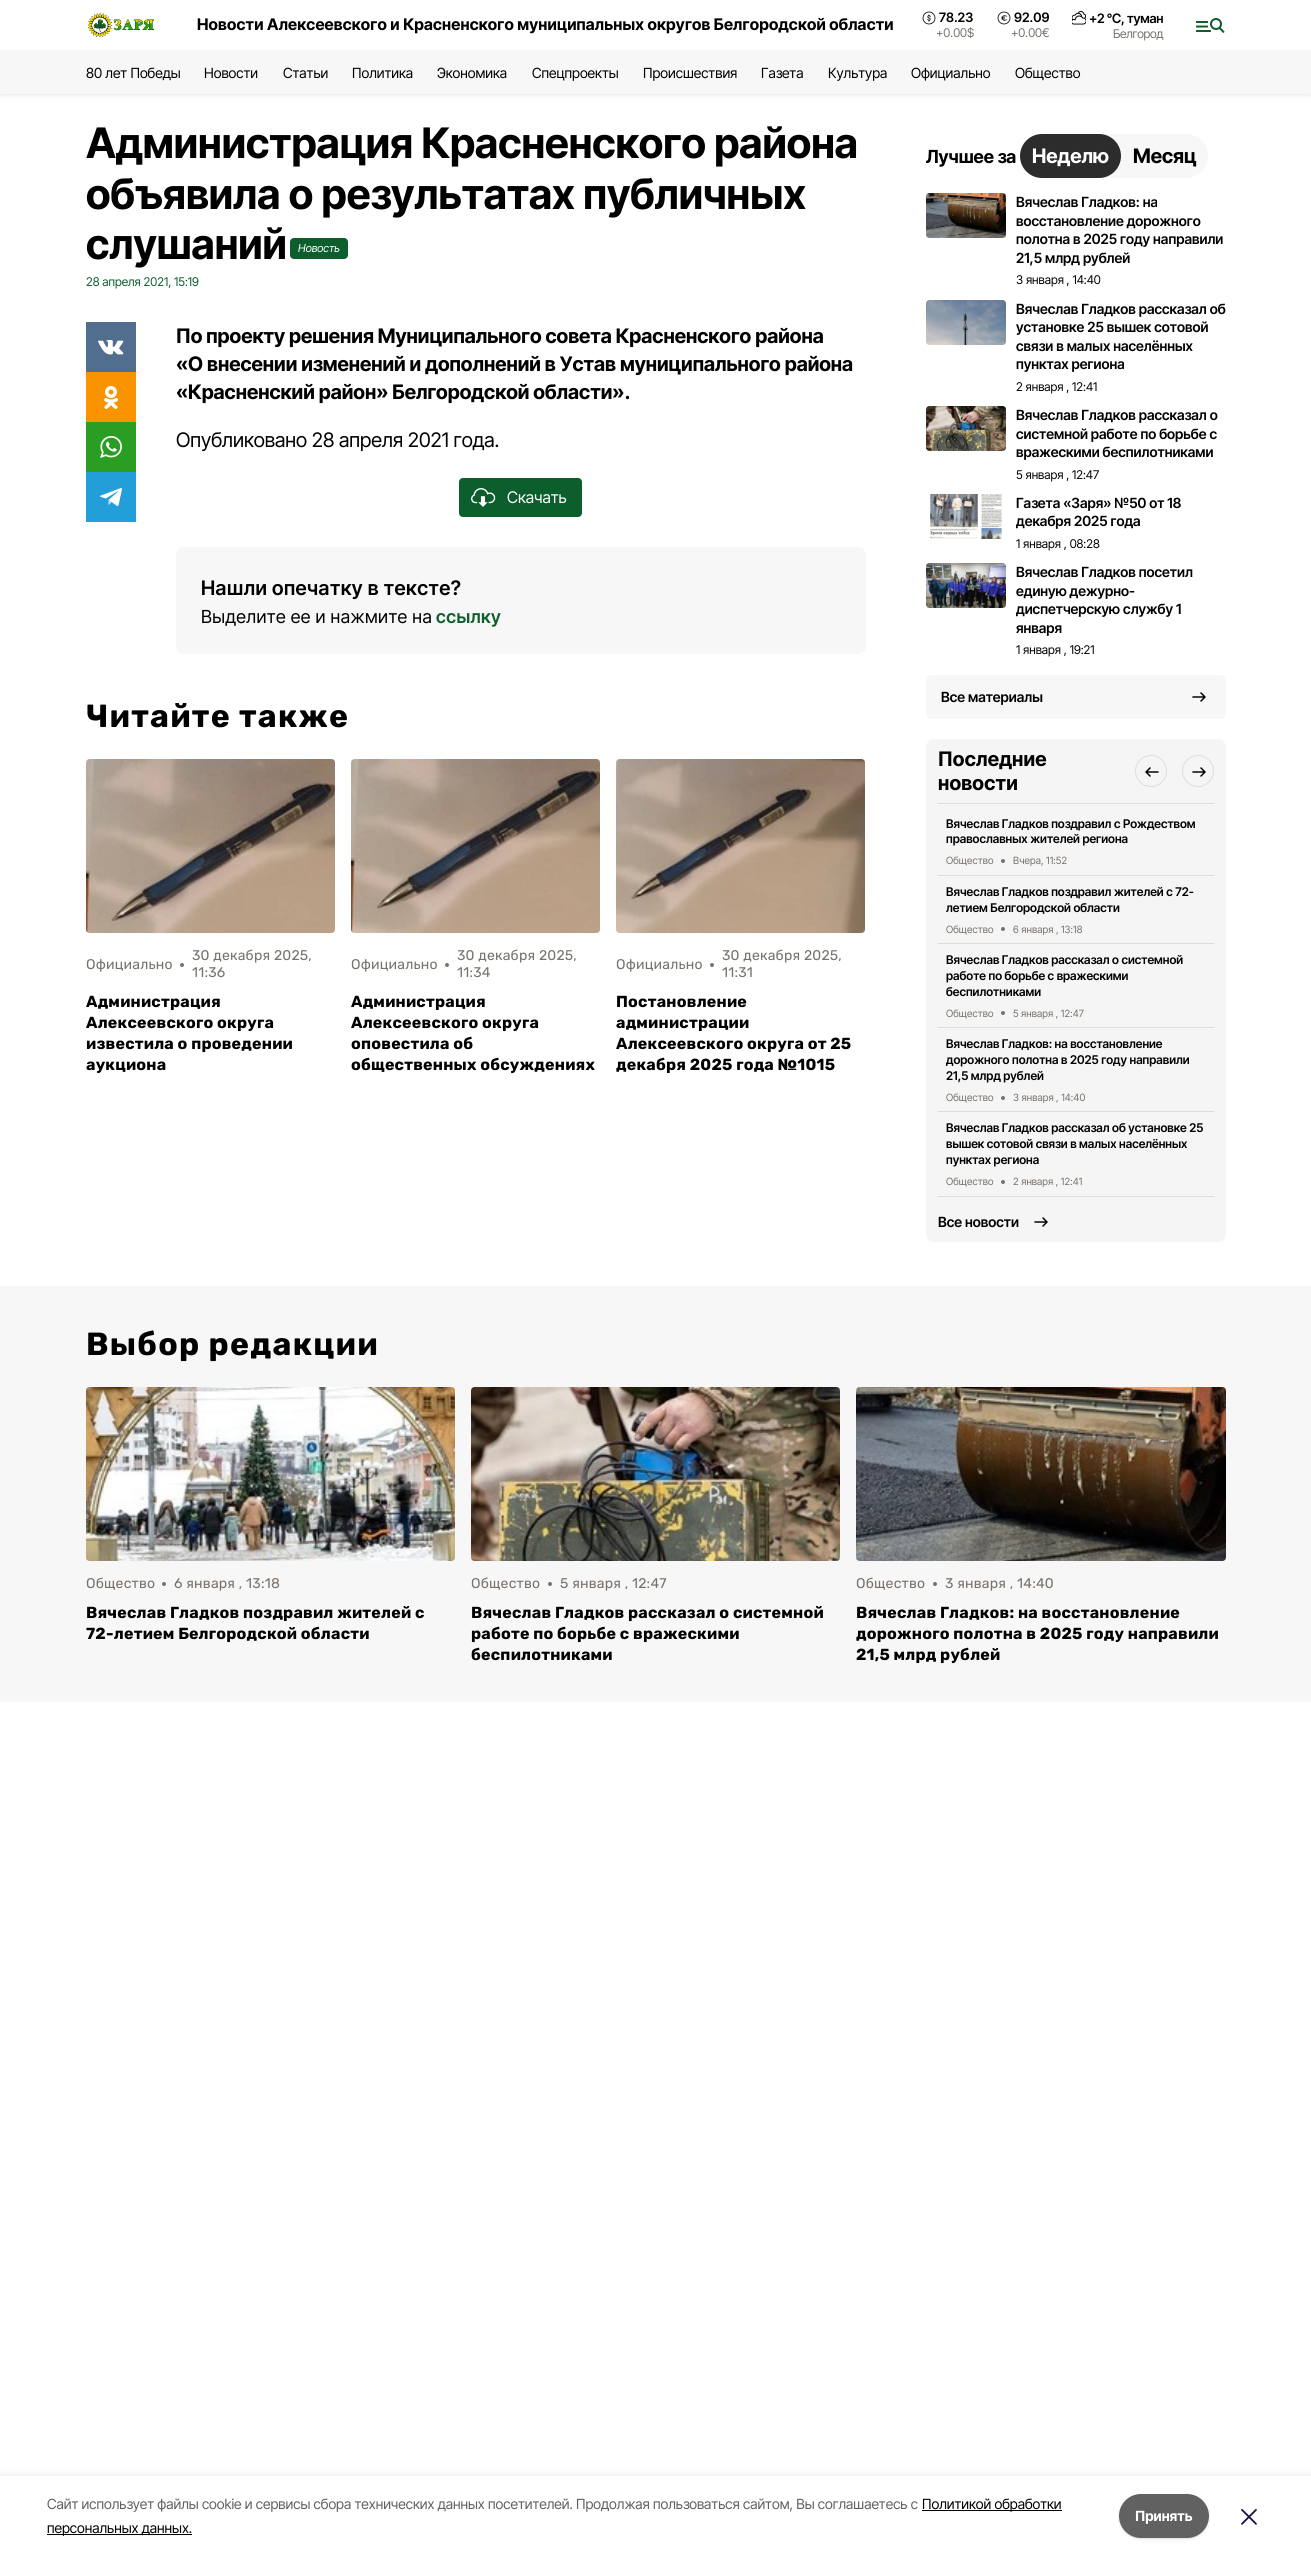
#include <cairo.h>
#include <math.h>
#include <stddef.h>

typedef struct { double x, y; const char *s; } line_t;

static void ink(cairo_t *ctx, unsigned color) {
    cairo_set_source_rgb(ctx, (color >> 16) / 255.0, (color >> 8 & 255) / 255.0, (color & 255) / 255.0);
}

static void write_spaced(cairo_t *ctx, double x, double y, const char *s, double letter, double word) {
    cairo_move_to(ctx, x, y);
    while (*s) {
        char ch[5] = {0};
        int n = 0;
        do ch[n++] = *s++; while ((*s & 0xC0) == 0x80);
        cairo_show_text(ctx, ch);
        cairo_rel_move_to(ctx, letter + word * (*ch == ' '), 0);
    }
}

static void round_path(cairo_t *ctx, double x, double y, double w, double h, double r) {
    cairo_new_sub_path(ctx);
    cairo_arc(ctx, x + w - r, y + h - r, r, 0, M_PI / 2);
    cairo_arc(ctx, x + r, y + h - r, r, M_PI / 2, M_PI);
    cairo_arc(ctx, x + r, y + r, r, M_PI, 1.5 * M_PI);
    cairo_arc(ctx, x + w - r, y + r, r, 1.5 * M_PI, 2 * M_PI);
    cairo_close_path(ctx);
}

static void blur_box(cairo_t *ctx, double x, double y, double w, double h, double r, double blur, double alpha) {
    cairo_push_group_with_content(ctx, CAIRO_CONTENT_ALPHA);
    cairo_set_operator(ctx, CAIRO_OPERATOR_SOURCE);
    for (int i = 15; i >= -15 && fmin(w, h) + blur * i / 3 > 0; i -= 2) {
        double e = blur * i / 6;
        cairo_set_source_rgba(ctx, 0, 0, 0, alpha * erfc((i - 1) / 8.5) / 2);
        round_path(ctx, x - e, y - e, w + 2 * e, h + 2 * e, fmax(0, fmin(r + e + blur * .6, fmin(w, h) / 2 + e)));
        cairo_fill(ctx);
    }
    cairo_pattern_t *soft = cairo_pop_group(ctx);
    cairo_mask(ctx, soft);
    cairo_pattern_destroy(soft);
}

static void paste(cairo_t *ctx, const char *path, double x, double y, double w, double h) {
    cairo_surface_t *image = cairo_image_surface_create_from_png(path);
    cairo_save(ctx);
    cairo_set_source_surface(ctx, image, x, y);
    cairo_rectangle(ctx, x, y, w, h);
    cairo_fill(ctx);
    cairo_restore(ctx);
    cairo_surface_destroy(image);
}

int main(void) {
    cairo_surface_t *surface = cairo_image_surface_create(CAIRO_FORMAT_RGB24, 1311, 2556);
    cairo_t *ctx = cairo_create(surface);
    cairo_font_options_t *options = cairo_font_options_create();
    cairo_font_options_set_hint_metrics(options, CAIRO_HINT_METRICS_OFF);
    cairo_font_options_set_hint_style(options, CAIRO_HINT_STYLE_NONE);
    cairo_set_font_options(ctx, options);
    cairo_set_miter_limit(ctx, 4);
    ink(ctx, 0xFFFFFF);
    cairo_paint(ctx);
    paste(ctx, "media/1.png", 87, 12, 67, 26);
    cairo_select_font_face(ctx, "Inter Tight", CAIRO_FONT_SLANT_NORMAL, CAIRO_FONT_WEIGHT_BOLD);
    cairo_set_font_size(ctx, 16);
    ink(ctx, 0x000000);
    write_spaced(ctx, 197, 30, "Новости Алексеевского и Красненского муниципальных округов Белгородской области", 0.2, 0);
    paste(ctx, "media/2.png", 922, 11, 14, 14);
    cairo_select_font_face(ctx, "Inter Tight SemiBold", CAIRO_FONT_SLANT_NORMAL, CAIRO_FONT_WEIGHT_NORMAL);
    cairo_set_font_size(ctx, 13);
    cairo_move_to(ctx, 939, 22);
    cairo_show_text(ctx, "78.23");
    cairo_select_font_face(ctx, "Inter Tight", CAIRO_FONT_SLANT_NORMAL, CAIRO_FONT_WEIGHT_NORMAL);
    cairo_set_font_size(ctx, 12);
    ink(ctx, 0x78716C);
    cairo_move_to(ctx, 936, 37);
    cairo_show_text(ctx, "+0.00$");
    paste(ctx, "media/3.png", 997, 11, 14, 14);
    cairo_select_font_face(ctx, "Inter Tight SemiBold", CAIRO_FONT_SLANT_NORMAL, CAIRO_FONT_WEIGHT_NORMAL);
    cairo_set_font_size(ctx, 13);
    ink(ctx, 0x000000);
    cairo_move_to(ctx, 1014, 22);
    cairo_show_text(ctx, "92.09");
    cairo_select_font_face(ctx, "Inter Tight", CAIRO_FONT_SLANT_NORMAL, CAIRO_FONT_WEIGHT_NORMAL);
    cairo_set_font_size(ctx, 12);
    ink(ctx, 0x78716C);
    cairo_move_to(ctx, 1011, 37);
    cairo_show_text(ctx, "+0.00€");
    paste(ctx, "media/4.png", 1072, 11, 14, 14);
    cairo_select_font_face(ctx, "Inter Tight SemiBold", CAIRO_FONT_SLANT_NORMAL, CAIRO_FONT_WEIGHT_NORMAL);
    cairo_set_font_size(ctx, 13);
    ink(ctx, 0x000000);
    write_spaced(ctx, 1089, 23, "+2 °С, туман", -0.25, 0);
    cairo_select_font_face(ctx, "Inter Tight", CAIRO_FONT_SLANT_NORMAL, CAIRO_FONT_WEIGHT_NORMAL);
    cairo_set_font_size(ctx, 12);
    ink(ctx, 0x78716C);
    write_spaced(ctx, 1113, 38, "Белгород", -0.25, 0);
    paste(ctx, "media/5.png", 1196, 18, 29, 15);
    ink(ctx, 0x000000);
    blur_box(ctx, 0, 52, 1311, 44, 0, 2, 0.08);
    ink(ctx, 0xF7F7F7);
    cairo_rectangle(ctx, 0, 50, 1311, 44);
    cairo_fill(ctx);
    cairo_set_font_size(ctx, 14);
    ink(ctx, 0x000000);
    {
        static const line_t items[] = {
            {86, 78, "80 лет Победы"},
            {204, 78, "Новости"},
            {283, 78, "Статьи"},
            {352, 78, "Политика"},
            {437, 78, "Экономика"},
            {532, 78, "Спецпроекты"},
            {643, 78, "Происшествия"},
            {761, 78, "Газета"},
            {828, 78, "Культура"},
            {911, 78, "Официально"},
            {1015, 78, "Общество"},
        };
        for (size_t i = 0; i < sizeof items / sizeof *items; i++) {
            cairo_move_to(ctx, items[i].x, items[i].y);
            cairo_show_text(ctx, items[i].s);
        }
    }
    cairo_select_font_face(ctx, "Inter Tight", CAIRO_FONT_SLANT_NORMAL, CAIRO_FONT_WEIGHT_BOLD);
    cairo_set_font_size(ctx, 42);
    {
        static const line_t items[] = {
            {86, 158, "Администрация Красненского района"},
            {86, 209, "объявила о результатах публичных"},
            {86, 259, "слушаний"},
        };
        for (size_t i = 0; i < sizeof items / sizeof *items; i++) {
            cairo_move_to(ctx, items[i].x, items[i].y);
            cairo_show_text(ctx, items[i].s);
        }
    }
    ink(ctx, 0x0C5E2D);
    round_path(ctx, 290, 238, 58, 21, 4);
    cairo_fill(ctx);
    cairo_select_font_face(ctx, "Inter Tight", CAIRO_FONT_SLANT_ITALIC, CAIRO_FONT_WEIGHT_NORMAL);
    cairo_set_font_size(ctx, 11);
    ink(ctx, 0xFFFFFF);
    cairo_move_to(ctx, 298, 252);
    cairo_show_text(ctx, "Новость");
    cairo_select_font_face(ctx, "Inter Tight", CAIRO_FONT_SLANT_NORMAL, CAIRO_FONT_WEIGHT_NORMAL);
    cairo_set_font_size(ctx, 12);
    ink(ctx, 0x0C5E2D);
    cairo_move_to(ctx, 86, 286);
    cairo_show_text(ctx, "28 апреля 2021, 15:19");
    ink(ctx, 0x526E8F);
    cairo_rectangle(ctx, 86, 322, 50, 50);
    cairo_fill(ctx);
    paste(ctx, "media/6.png", 98, 340, 26, 15);
    ink(ctx, 0xF99400);
    cairo_rectangle(ctx, 86, 372, 50, 50);
    cairo_fill(ctx);
    paste(ctx, "media/7.png", 104, 386, 14, 23);
    ink(ctx, 0x2A9E22);
    cairo_rectangle(ctx, 86, 422, 50, 50);
    cairo_fill(ctx);
    paste(ctx, "media/8.png", 100, 436, 22, 22);
    ink(ctx, 0x229ED9);
    cairo_rectangle(ctx, 86, 472, 50, 50);
    cairo_fill(ctx);
    paste(ctx, "media/9.png", 100, 488, 22, 18);
    cairo_select_font_face(ctx, "Inter Tight", CAIRO_FONT_SLANT_NORMAL, CAIRO_FONT_WEIGHT_BOLD);
    cairo_set_font_size(ctx, 20);
    ink(ctx, 0x000000);
    {
        static const line_t items[] = {
            {176, 343, "По проекту решения Муниципального совета Красненского района"},
            {176, 371, "«О внесении изменений и дополнений в Устав муниципального района"},
            {176, 399, "«Красненский район» Белгородской области»."},
        };
        for (size_t i = 0; i < sizeof items / sizeof *items; i++) {
            cairo_move_to(ctx, items[i].x, items[i].y);
            cairo_show_text(ctx, items[i].s);
        }
    }
    cairo_select_font_face(ctx, "Inter Tight", CAIRO_FONT_SLANT_NORMAL, CAIRO_FONT_WEIGHT_NORMAL);
    cairo_move_to(ctx, 176, 447);
    cairo_show_text(ctx, "Опубликовано 28 апреля 2021 года.");
    ink(ctx, 0x0C5E2D);
    round_path(ctx, 459, 478, 123, 39, 4);
    cairo_fill(ctx);
    paste(ctx, "media/10.png", 471, 488, 25, 19);
    cairo_set_font_size(ctx, 16);
    ink(ctx, 0xFFFFFF);
    cairo_move_to(ctx, 507, 503);
    cairo_show_text(ctx, "Скачать");
    ink(ctx, 0xF7F7F7);
    round_path(ctx, 176, 547, 690, 107, 8);
    cairo_fill(ctx);
    cairo_select_font_face(ctx, "Inter Tight SemiBold", CAIRO_FONT_SLANT_NORMAL, CAIRO_FONT_WEIGHT_NORMAL);
    cairo_set_font_size(ctx, 20);
    ink(ctx, 0x000000);
    write_spaced(ctx, 201, 595, "Нашли опечатку в тексте?", 0.5, 0);
    cairo_select_font_face(ctx, "Inter Tight", CAIRO_FONT_SLANT_NORMAL, CAIRO_FONT_WEIGHT_NORMAL);
    cairo_set_font_size(ctx, 18);
    write_spaced(ctx, 201, 623, "Выделите ее и нажмите на", 0.45, 0);
    cairo_select_font_face(ctx, "Inter Tight SemiBold", CAIRO_FONT_SLANT_NORMAL, CAIRO_FONT_WEIGHT_NORMAL);
    ink(ctx, 0x0C5E2D);
    write_spaced(ctx, 436, 623, "ссылку", 0.45, 0);
    cairo_select_font_face(ctx, "Rubik", CAIRO_FONT_SLANT_NORMAL, CAIRO_FONT_WEIGHT_BOLD);
    cairo_set_font_size(ctx, 32);
    ink(ctx, 0x000000);
    write_spaced(ctx, 86, 727, "Читайте также", 1.25, 0);
    paste(ctx, "media/11.png", 86, 759, 249, 174);
    cairo_select_font_face(ctx, "Rubik", CAIRO_FONT_SLANT_NORMAL, CAIRO_FONT_WEIGHT_NORMAL);
    cairo_set_font_size(ctx, 14);
    ink(ctx, 0x78716C);
    write_spaced(ctx, 86, 969, "Официально", 0.2, 0);
    cairo_new_path(ctx);
    cairo_arc(ctx, 182, 965, 2, 0, 2 * M_PI);
    cairo_fill(ctx);
    write_spaced(ctx, 192, 960, "30 декабря 2025,", 0.2, 0);
    write_spaced(ctx, 192, 977, "11:36", 0.2, 0);
    cairo_select_font_face(ctx, "Rubik", CAIRO_FONT_SLANT_NORMAL, CAIRO_FONT_WEIGHT_BOLD);
    cairo_set_font_size(ctx, 16);
    ink(ctx, 0x000000);
    {
        static const line_t items[] = {
            {86, 1007, "Администрация"},
            {86, 1028, "Алексеевского округа"},
            {86, 1049, "известила о проведении"},
            {86, 1070, "аукциона"},
        };
        for (size_t i = 0; i < sizeof items / sizeof *items; i++) {
            write_spaced(ctx, items[i].x, items[i].y, items[i].s, 0.2, 0);
        }
    }
    paste(ctx, "media/12.png", 351, 759, 249, 174);
    cairo_select_font_face(ctx, "Rubik", CAIRO_FONT_SLANT_NORMAL, CAIRO_FONT_WEIGHT_NORMAL);
    cairo_set_font_size(ctx, 14);
    ink(ctx, 0x78716C);
    write_spaced(ctx, 351, 969, "Официально", 0.2, 0);
    cairo_new_path(ctx);
    cairo_arc(ctx, 447, 965, 2, 0, 2 * M_PI);
    cairo_fill(ctx);
    write_spaced(ctx, 457, 960, "30 декабря 2025,", 0.2, 0);
    write_spaced(ctx, 457, 977, "11:34", 0.2, 0);
    cairo_select_font_face(ctx, "Rubik", CAIRO_FONT_SLANT_NORMAL, CAIRO_FONT_WEIGHT_BOLD);
    cairo_set_font_size(ctx, 16);
    ink(ctx, 0x000000);
    {
        static const line_t items[] = {
            {351, 1007, "Администрация"},
            {351, 1028, "Алексеевского округа"},
            {351, 1049, "оповестила об"},
            {351, 1070, "общественных обсуждениях"},
        };
        for (size_t i = 0; i < sizeof items / sizeof *items; i++) {
            write_spaced(ctx, items[i].x, items[i].y, items[i].s, 0.2, 0);
        }
    }
    paste(ctx, "media/13.png", 616, 759, 249, 174);
    cairo_select_font_face(ctx, "Rubik", CAIRO_FONT_SLANT_NORMAL, CAIRO_FONT_WEIGHT_NORMAL);
    cairo_set_font_size(ctx, 14);
    ink(ctx, 0x78716C);
    write_spaced(ctx, 616, 969, "Официально", 0.2, 0);
    cairo_new_path(ctx);
    cairo_arc(ctx, 712, 965, 2, 0, 2 * M_PI);
    cairo_fill(ctx);
    write_spaced(ctx, 722, 960, "30 декабря 2025,", 0.2, 0);
    write_spaced(ctx, 722, 977, "11:31", 0.2, 0);
    cairo_select_font_face(ctx, "Rubik", CAIRO_FONT_SLANT_NORMAL, CAIRO_FONT_WEIGHT_BOLD);
    cairo_set_font_size(ctx, 16);
    ink(ctx, 0x000000);
    {
        static const line_t items[] = {
            {616, 1007, "Постановление"},
            {616, 1028, "администрации"},
            {616, 1049, "Алексеевского округа от 25"},
            {616, 1070, "декабря 2025 года №1015"},
        };
        for (size_t i = 0; i < sizeof items / sizeof *items; i++) {
            write_spaced(ctx, items[i].x, items[i].y, items[i].s, 0.2, 0);
        }
    }
    cairo_select_font_face(ctx, "Inter Tight", CAIRO_FONT_SLANT_NORMAL, CAIRO_FONT_WEIGHT_BOLD);
    cairo_set_font_size(ctx, 18);
    cairo_move_to(ctx, 926, 163);
    cairo_show_text(ctx, "Лучшее за");
    ink(ctx, 0xF7F7F7);
    round_path(ctx, 1020, 134, 188, 44, 22);
    cairo_fill(ctx);
    ink(ctx, 0x2C2C2C);
    round_path(ctx, 1020, 134, 101, 44, 22);
    cairo_fill(ctx);
    cairo_set_font_size(ctx, 20);
    ink(ctx, 0xFFFFFF);
    cairo_move_to(ctx, 1032, 163);
    cairo_show_text(ctx, "Неделю");
    ink(ctx, 0x000000);
    cairo_move_to(ctx, 1133, 163);
    cairo_show_text(ctx, "Месяц");
    paste(ctx, "media/14.png", 926, 193, 80, 45);
    paste(ctx, "media/15.png", 926, 193, 80, 45);
    cairo_select_font_face(ctx, "Inter Tight SemiBold", CAIRO_FONT_SLANT_NORMAL, CAIRO_FONT_WEIGHT_NORMAL);
    cairo_set_font_size(ctx, 14);
    {
        static const line_t items[] = {
            {1016, 207, "Вячеслав Гладков: на"},
            {1016, 226, "восстановление дорожного"},
            {1016, 244, "полотна в 2025 году направили"},
            {1016, 263, "21,5 млрд рублей"},
        };
        for (size_t i = 0; i < sizeof items / sizeof *items; i++) {
            cairo_move_to(ctx, items[i].x, items[i].y);
            cairo_show_text(ctx, items[i].s);
        }
    }
    cairo_select_font_face(ctx, "Inter Tight", CAIRO_FONT_SLANT_NORMAL, CAIRO_FONT_WEIGHT_NORMAL);
    cairo_set_font_size(ctx, 12);
    cairo_move_to(ctx, 1016, 284);
    cairo_show_text(ctx, "3 января , 14:40");
    paste(ctx, "media/16.png", 926, 300, 80, 45);
    paste(ctx, "media/17.png", 926, 300, 80, 45);
    cairo_select_font_face(ctx, "Inter Tight SemiBold", CAIRO_FONT_SLANT_NORMAL, CAIRO_FONT_WEIGHT_NORMAL);
    cairo_set_font_size(ctx, 14);
    {
        static const line_t items[] = {
            {1016, 314, "Вячеслав Гладков рассказал об"},
            {1016, 332, "установке 25 вышек сотовой"},
            {1016, 351, "связи в малых населённых"},
            {1016, 369, "пунктах региона"},
        };
        for (size_t i = 0; i < sizeof items / sizeof *items; i++) {
            cairo_move_to(ctx, items[i].x, items[i].y);
            cairo_show_text(ctx, items[i].s);
        }
    }
    cairo_select_font_face(ctx, "Inter Tight", CAIRO_FONT_SLANT_NORMAL, CAIRO_FONT_WEIGHT_NORMAL);
    cairo_set_font_size(ctx, 12);
    cairo_move_to(ctx, 1016, 391);
    cairo_show_text(ctx, "2 января , 12:41");
    paste(ctx, "media/18.png", 926, 406, 80, 45);
    paste(ctx, "media/19.png", 926, 406, 80, 45);
    cairo_select_font_face(ctx, "Inter Tight SemiBold", CAIRO_FONT_SLANT_NORMAL, CAIRO_FONT_WEIGHT_NORMAL);
    cairo_set_font_size(ctx, 14);
    {
        static const line_t items[] = {
            {1016, 420, "Вячеслав Гладков рассказал о"},
            {1016, 439, "системной работе по борьбе с"},
            {1016, 457, "вражескими беспилотниками"},
        };
        for (size_t i = 0; i < sizeof items / sizeof *items; i++) {
            cairo_move_to(ctx, items[i].x, items[i].y);
            cairo_show_text(ctx, items[i].s);
        }
    }
    cairo_select_font_face(ctx, "Inter Tight", CAIRO_FONT_SLANT_NORMAL, CAIRO_FONT_WEIGHT_NORMAL);
    cairo_set_font_size(ctx, 12);
    cairo_move_to(ctx, 1016, 479);
    cairo_show_text(ctx, "5 января , 12:47");
    paste(ctx, "media/20.png", 926, 494, 80, 45);
    paste(ctx, "media/21.png", 926, 494, 80, 45);
    cairo_select_font_face(ctx, "Inter Tight SemiBold", CAIRO_FONT_SLANT_NORMAL, CAIRO_FONT_WEIGHT_NORMAL);
    cairo_set_font_size(ctx, 14);
    cairo_move_to(ctx, 1016, 508);
    cairo_show_text(ctx, "Газета «Заря» №50 от 18");
    cairo_move_to(ctx, 1016, 526);
    cairo_show_text(ctx, "декабря 2025 года");
    cairo_select_font_face(ctx, "Inter Tight", CAIRO_FONT_SLANT_NORMAL, CAIRO_FONT_WEIGHT_NORMAL);
    cairo_set_font_size(ctx, 12);
    cairo_move_to(ctx, 1016, 548);
    cairo_show_text(ctx, "1 января , 08:28");
    paste(ctx, "media/22.png", 926, 563, 80, 45);
    paste(ctx, "media/23.png", 926, 563, 80, 45);
    cairo_select_font_face(ctx, "Inter Tight SemiBold", CAIRO_FONT_SLANT_NORMAL, CAIRO_FONT_WEIGHT_NORMAL);
    cairo_set_font_size(ctx, 14);
    {
        static const line_t items[] = {
            {1016, 577, "Вячеслав Гладков посетил"},
            {1016, 596, "единую дежурно-"},
            {1016, 614, "диспетчерскую службу 1"},
            {1016, 633, "января"},
        };
        for (size_t i = 0; i < sizeof items / sizeof *items; i++) {
            cairo_move_to(ctx, items[i].x, items[i].y);
            cairo_show_text(ctx, items[i].s);
        }
    }
    cairo_select_font_face(ctx, "Inter Tight", CAIRO_FONT_SLANT_NORMAL, CAIRO_FONT_WEIGHT_NORMAL);
    cairo_set_font_size(ctx, 12);
    cairo_move_to(ctx, 1016, 654);
    cairo_show_text(ctx, "1 января , 19:21");
    ink(ctx, 0xF7F7F7);
    round_path(ctx, 926, 675, 300, 44, 6);
    cairo_fill(ctx);
    cairo_select_font_face(ctx, "Inter Tight SemiBold", CAIRO_FONT_SLANT_NORMAL, CAIRO_FONT_WEIGHT_NORMAL);
    cairo_set_font_size(ctx, 14);
    ink(ctx, 0x000000);
    cairo_move_to(ctx, 941, 702);
    cairo_show_text(ctx, "Все материалы");
    cairo_new_path(ctx);
    cairo_move_to(ctx, 1201, 701);
    cairo_line_to(ctx, 1205, 697);
    cairo_move_to(ctx, 1205, 697);
    cairo_line_to(ctx, 1201, 693);
    cairo_move_to(ctx, 1205, 697);
    cairo_line_to(ctx, 1193, 697);
    cairo_set_line_width(ctx, 1.5);
    cairo_set_line_cap(ctx, CAIRO_LINE_CAP_ROUND);
    cairo_set_line_join(ctx, CAIRO_LINE_JOIN_ROUND);
    cairo_stroke(ctx);
    ink(ctx, 0xF5F5F5);
    round_path(ctx, 926, 739, 300, 503, 8);
    cairo_fill(ctx);
    ink(ctx, 0xDDDDDD);
    cairo_rectangle(ctx, 938, 803, 276, 1);
    cairo_fill(ctx);
    cairo_select_font_face(ctx, "Inter Tight", CAIRO_FONT_SLANT_NORMAL, CAIRO_FONT_WEIGHT_BOLD);
    cairo_set_font_size(ctx, 20);
    ink(ctx, 0x000000);
    write_spaced(ctx, 938, 766, "Последние", 0.2, 0);
    write_spaced(ctx, 938, 790, "новости", 0.2, 0);
    cairo_new_path(ctx);
    cairo_arc(ctx, 1151, 771, 15.5, 0, 2 * M_PI);
    ink(ctx, 0xDDDDDD);
    cairo_set_line_width(ctx, 1);
    cairo_set_line_cap(ctx, CAIRO_LINE_CAP_BUTT);
    cairo_set_line_join(ctx, CAIRO_LINE_JOIN_MITER);
    cairo_stroke(ctx);
    cairo_arc(ctx, 1198, 771, 15.5, 0, 2 * M_PI);
    cairo_stroke(ctx);
    cairo_new_path(ctx);
    cairo_move_to(ctx, 1150, 776);
    cairo_line_to(ctx, 1146, 772);
    cairo_move_to(ctx, 1146, 772);
    cairo_line_to(ctx, 1150, 768);
    cairo_move_to(ctx, 1146, 772);
    cairo_line_to(ctx, 1158, 772);
    cairo_move_to(ctx, 1201, 776);
    cairo_line_to(ctx, 1205, 772);
    cairo_move_to(ctx, 1205, 772);
    cairo_line_to(ctx, 1201, 768);
    cairo_move_to(ctx, 1205, 772);
    cairo_line_to(ctx, 1193, 772);
    ink(ctx, 0x000000);
    cairo_set_line_width(ctx, 1.5);
    cairo_set_line_cap(ctx, CAIRO_LINE_CAP_ROUND);
    cairo_set_line_join(ctx, CAIRO_LINE_JOIN_ROUND);
    cairo_stroke(ctx);
    ink(ctx, 0xDDDDDD);
    cairo_rectangle(ctx, 938, 875, 276, 1);
    cairo_fill(ctx);
    cairo_select_font_face(ctx, "Inter Tight SemiBold", CAIRO_FONT_SLANT_NORMAL, CAIRO_FONT_WEIGHT_NORMAL);
    cairo_set_font_size(ctx, 12);
    ink(ctx, 0x000000);
    cairo_move_to(ctx, 946, 828);
    cairo_show_text(ctx, "Вячеслав Гладков поздравил с Рождеством");
    cairo_move_to(ctx, 946, 843);
    cairo_show_text(ctx, "православных жителей региона");
    cairo_select_font_face(ctx, "Inter Tight", CAIRO_FONT_SLANT_NORMAL, CAIRO_FONT_WEIGHT_NORMAL);
    cairo_set_font_size(ctx, 10);
    ink(ctx, 0x78716C);
    write_spaced(ctx, 946, 864, "Общество", 0.1, 0);
    cairo_new_path(ctx);
    cairo_arc(ctx, 1003, 861, 2, 0, 2 * M_PI);
    cairo_fill(ctx);
    write_spaced(ctx, 1013, 864, "Вчера, 11:52", 0.1, 0);
    ink(ctx, 0xDDDDDD);
    cairo_rectangle(ctx, 938, 943, 276, 1);
    cairo_fill(ctx);
    cairo_select_font_face(ctx, "Inter Tight SemiBold", CAIRO_FONT_SLANT_NORMAL, CAIRO_FONT_WEIGHT_NORMAL);
    cairo_set_font_size(ctx, 12);
    ink(ctx, 0x000000);
    cairo_move_to(ctx, 946, 896);
    cairo_show_text(ctx, "Вячеслав Гладков поздравил жителей с 72-");
    cairo_move_to(ctx, 946, 912);
    cairo_show_text(ctx, "летием Белгородской области");
    cairo_select_font_face(ctx, "Inter Tight", CAIRO_FONT_SLANT_NORMAL, CAIRO_FONT_WEIGHT_NORMAL);
    cairo_set_font_size(ctx, 10);
    ink(ctx, 0x78716C);
    write_spaced(ctx, 946, 933, "Общество", 0.1, 0);
    cairo_new_path(ctx);
    cairo_arc(ctx, 1003, 929, 2, 0, 2 * M_PI);
    cairo_fill(ctx);
    write_spaced(ctx, 1013, 933, "6 января , 13:18", 0.1, 0);
    ink(ctx, 0xDDDDDD);
    cairo_rectangle(ctx, 938, 1027, 276, 1);
    cairo_fill(ctx);
    cairo_select_font_face(ctx, "Inter Tight SemiBold", CAIRO_FONT_SLANT_NORMAL, CAIRO_FONT_WEIGHT_NORMAL);
    cairo_set_font_size(ctx, 12);
    ink(ctx, 0x000000);
    {
        static const line_t items[] = {
            {946, 964, "Вячеслав Гладков рассказал о системной"},
            {946, 980, "работе по борьбе с вражескими"},
            {946, 996, "беспилотниками"},
        };
        for (size_t i = 0; i < sizeof items / sizeof *items; i++) {
            cairo_move_to(ctx, items[i].x, items[i].y);
            cairo_show_text(ctx, items[i].s);
        }
    }
    cairo_select_font_face(ctx, "Inter Tight", CAIRO_FONT_SLANT_NORMAL, CAIRO_FONT_WEIGHT_NORMAL);
    cairo_set_font_size(ctx, 10);
    ink(ctx, 0x78716C);
    write_spaced(ctx, 946, 1017, "Общество", 0.1, 0);
    cairo_new_path(ctx);
    cairo_arc(ctx, 1003, 1013, 2, 0, 2 * M_PI);
    cairo_fill(ctx);
    write_spaced(ctx, 1013, 1017, "5 января , 12:47", 0.1, 0);
    ink(ctx, 0xDDDDDD);
    cairo_rectangle(ctx, 938, 1111, 276, 1);
    cairo_fill(ctx);
    cairo_select_font_face(ctx, "Inter Tight SemiBold", CAIRO_FONT_SLANT_NORMAL, CAIRO_FONT_WEIGHT_NORMAL);
    cairo_set_font_size(ctx, 12);
    ink(ctx, 0x000000);
    {
        static const line_t items[] = {
            {946, 1048, "Вячеслав Гладков: на восстановление"},
            {946, 1064, "дорожного полотна в 2025 году направили"},
            {946, 1080, "21,5 млрд рублей"},
        };
        for (size_t i = 0; i < sizeof items / sizeof *items; i++) {
            cairo_move_to(ctx, items[i].x, items[i].y);
            cairo_show_text(ctx, items[i].s);
        }
    }
    cairo_select_font_face(ctx, "Inter Tight", CAIRO_FONT_SLANT_NORMAL, CAIRO_FONT_WEIGHT_NORMAL);
    cairo_set_font_size(ctx, 10);
    ink(ctx, 0x78716C);
    write_spaced(ctx, 946, 1101, "Общество", 0.1, 0);
    cairo_new_path(ctx);
    cairo_arc(ctx, 1003, 1098, 2, 0, 2 * M_PI);
    cairo_fill(ctx);
    write_spaced(ctx, 1013, 1101, "3 января , 14:40", 0.1, 0);
    ink(ctx, 0xDDDDDD);
    cairo_rectangle(ctx, 938, 1196, 276, 1);
    cairo_fill(ctx);
    cairo_select_font_face(ctx, "Inter Tight SemiBold", CAIRO_FONT_SLANT_NORMAL, CAIRO_FONT_WEIGHT_NORMAL);
    cairo_set_font_size(ctx, 12);
    ink(ctx, 0x000000);
    {
        static const line_t items[] = {
            {946, 1132, "Вячеслав Гладков рассказал об установке 25"},
            {946, 1148, "вышек сотовой связи в малых населённых"},
            {946, 1164, "пунктах региона"},
        };
        for (size_t i = 0; i < sizeof items / sizeof *items; i++) {
            cairo_move_to(ctx, items[i].x, items[i].y);
            cairo_show_text(ctx, items[i].s);
        }
    }
    cairo_select_font_face(ctx, "Inter Tight", CAIRO_FONT_SLANT_NORMAL, CAIRO_FONT_WEIGHT_NORMAL);
    cairo_set_font_size(ctx, 10);
    ink(ctx, 0x78716C);
    write_spaced(ctx, 946, 1185, "Общество", 0.1, 0);
    cairo_new_path(ctx);
    cairo_arc(ctx, 1003, 1182, 2, 0, 2 * M_PI);
    cairo_fill(ctx);
    write_spaced(ctx, 1013, 1185, "2 января , 12:41", 0.1, 0);
    cairo_select_font_face(ctx, "Inter Tight SemiBold", CAIRO_FONT_SLANT_NORMAL, CAIRO_FONT_WEIGHT_NORMAL);
    cairo_set_font_size(ctx, 14);
    ink(ctx, 0x000000);
    cairo_move_to(ctx, 938, 1227);
    cairo_show_text(ctx, "Все новости");
    cairo_new_path(ctx);
    cairo_move_to(ctx, 1043, 1226);
    cairo_line_to(ctx, 1047, 1222);
    cairo_move_to(ctx, 1047, 1222);
    cairo_line_to(ctx, 1043, 1218);
    cairo_move_to(ctx, 1047, 1222);
    cairo_line_to(ctx, 1035, 1222);
    cairo_stroke(ctx);
    ink(ctx, 0xF7F7F7);
    cairo_rectangle(ctx, 0, 1286, 1311, 416);
    cairo_fill(ctx);
    cairo_select_font_face(ctx, "Rubik", CAIRO_FONT_SLANT_NORMAL, CAIRO_FONT_WEIGHT_BOLD);
    cairo_set_font_size(ctx, 32);
    ink(ctx, 0x000000);
    write_spaced(ctx, 86, 1355, "Выбор редакции", 1.25, 0);
    paste(ctx, "media/24.png", 86, 1387, 369, 174);
    cairo_select_font_face(ctx, "Rubik", CAIRO_FONT_SLANT_NORMAL, CAIRO_FONT_WEIGHT_NORMAL);
    cairo_set_font_size(ctx, 14);
    ink(ctx, 0x78716C);
    write_spaced(ctx, 86, 1588, "Общество", 0.2, 0);
    cairo_new_path(ctx);
    cairo_arc(ctx, 164, 1584, 2, 0, 2 * M_PI);
    cairo_fill(ctx);
    write_spaced(ctx, 174, 1588, "6 января , 13:18", 0.2, 0);
    cairo_select_font_face(ctx, "Rubik", CAIRO_FONT_SLANT_NORMAL, CAIRO_FONT_WEIGHT_BOLD);
    cairo_set_font_size(ctx, 16);
    ink(ctx, 0x000000);
    write_spaced(ctx, 86, 1618, "Вячеслав Гладков поздравил жителей с", 0.2, 0);
    write_spaced(ctx, 86, 1639, "72-летием Белгородской области", 0.2, 0);
    paste(ctx, "media/25.png", 471, 1387, 369, 174);
    cairo_select_font_face(ctx, "Rubik", CAIRO_FONT_SLANT_NORMAL, CAIRO_FONT_WEIGHT_NORMAL);
    cairo_set_font_size(ctx, 14);
    ink(ctx, 0x78716C);
    write_spaced(ctx, 471, 1588, "Общество", 0.2, 0);
    cairo_new_path(ctx);
    cairo_arc(ctx, 550, 1584, 2, 0, 2 * M_PI);
    cairo_fill(ctx);
    write_spaced(ctx, 560, 1588, "5 января , 12:47", 0.2, 0);
    cairo_select_font_face(ctx, "Rubik", CAIRO_FONT_SLANT_NORMAL, CAIRO_FONT_WEIGHT_BOLD);
    cairo_set_font_size(ctx, 16);
    ink(ctx, 0x000000);
    {
        static const line_t items[] = {
            {471, 1618, "Вячеслав Гладков рассказал о системной"},
            {471, 1639, "работе по борьбе с вражескими"},
            {471, 1660, "беспилотниками"},
        };
        for (size_t i = 0; i < sizeof items / sizeof *items; i++) {
            write_spaced(ctx, items[i].x, items[i].y, items[i].s, 0.2, 0);
        }
    }
    paste(ctx, "media/26.png", 856, 1387, 370, 174);
    cairo_select_font_face(ctx, "Rubik", CAIRO_FONT_SLANT_NORMAL, CAIRO_FONT_WEIGHT_NORMAL);
    cairo_set_font_size(ctx, 14);
    ink(ctx, 0x78716C);
    write_spaced(ctx, 856, 1588, "Общество", 0.2, 0);
    cairo_new_path(ctx);
    cairo_arc(ctx, 935, 1584, 2, 0, 2 * M_PI);
    cairo_fill(ctx);
    write_spaced(ctx, 945, 1588, "3 января , 14:40", 0.2, 0);
    cairo_select_font_face(ctx, "Rubik", CAIRO_FONT_SLANT_NORMAL, CAIRO_FONT_WEIGHT_BOLD);
    cairo_set_font_size(ctx, 16);
    ink(ctx, 0x000000);
    {
        static const line_t items[] = {
            {856, 1618, "Вячеслав Гладков: на восстановление"},
            {856, 1639, "дорожного полотна в 2025 году направили"},
            {856, 1660, "21,5 млрд рублей"},
        };
        for (size_t i = 0; i < sizeof items / sizeof *items; i++) {
            write_spaced(ctx, items[i].x, items[i].y, items[i].s, 0.2, 0);
        }
    }
    ink(ctx, 0x000000);
    blur_box(ctx, 0, 2476, 1311, 80, 0, 5, 0.1);
    ink(ctx, 0xFFFFFF);
    cairo_rectangle(ctx, 0, 2476, 1311, 80);
    cairo_fill(ctx);
    cairo_select_font_face(ctx, "Inter Tight", CAIRO_FONT_SLANT_NORMAL, CAIRO_FONT_WEIGHT_NORMAL);
    cairo_set_font_size(ctx, 14);
    ink(ctx, 0x616161);
    cairo_move_to(ctx, 47, 2509);
    cairo_show_text(ctx, "Cайт использует файлы cookie и сервисы сбора технических данных посетителей.");
    cairo_move_to(ctx, 576, 2509);
    cairo_show_text(ctx, "Продолжая пользоваться сайтом, Вы соглашаетесь с");
    ink(ctx, 0x000000);
    cairo_rectangle(ctx, 922, 2510, 140, 1);
    cairo_fill(ctx);
    cairo_move_to(ctx, 922, 2509);
    cairo_show_text(ctx, "Политикой обработки");
    cairo_rectangle(ctx, 47, 2534, 145, 1);
    cairo_fill(ctx);
    cairo_move_to(ctx, 47, 2533);
    cairo_show_text(ctx, "персональных данных.");
    ink(ctx, 0x000000);
    blur_box(ctx, 1120, 2496, 88, 42, 21, 1, 0.1);
    blur_box(ctx, 1119, 2495, 90, 44, 22, 1.5, 0.1);
    ink(ctx, 0x616161);
    round_path(ctx, 1119, 2494, 90, 44, 22);
    cairo_fill(ctx);
    cairo_select_font_face(ctx, "Inter Tight", CAIRO_FONT_SLANT_NORMAL, CAIRO_FONT_WEIGHT_BOLD);
    ink(ctx, 0xFFFFFF);
    cairo_move_to(ctx, 1135, 2521);
    cairo_show_text(ctx, "Принять");
    paste(ctx, "media/27.png", 1241, 2509, 16, 16);
    cairo_surface_write_to_png(surface, "image.png");
    cairo_font_options_destroy(options);
    cairo_destroy(ctx);
    cairo_surface_destroy(surface);
    return 0;
}
